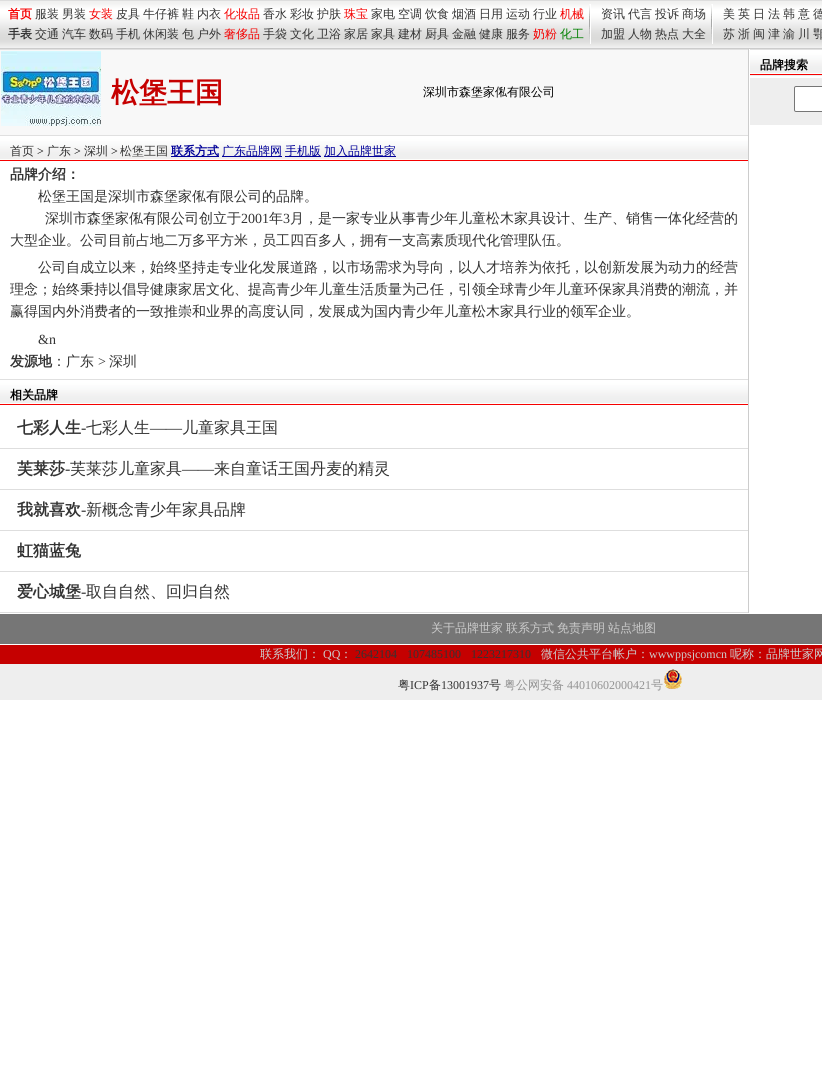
#include <cairo.h>
#include <math.h>
#include <stddef.h>

typedef struct { double x, y; const char *s; } line_t;
typedef struct { double x, y, w, h; unsigned color; } box_t;

static void ink(cairo_t *ctx, unsigned color) {
    cairo_set_source_rgb(ctx, (color >> 16) / 255.0, (color >> 8 & 255) / 255.0, (color & 255) / 255.0);
}

static void round_path(cairo_t *ctx, double x, double y, double w, double h, double r) {
    cairo_new_sub_path(ctx);
    cairo_arc(ctx, x + w - r, y + h - r, r, 0, M_PI / 2);
    cairo_arc(ctx, x + r, y + h - r, r, M_PI / 2, M_PI);
    cairo_arc(ctx, x + r, y + r, r, M_PI, 1.5 * M_PI);
    cairo_arc(ctx, x + w - r, y + r, r, 1.5 * M_PI, 2 * M_PI);
    cairo_close_path(ctx);
}

static void paste(cairo_t *ctx, const char *path, double x, double y, double w, double h) {
    cairo_surface_t *image = cairo_image_surface_create_from_png(path);
    cairo_save(ctx);
    cairo_set_source_surface(ctx, image, x, y);
    cairo_rectangle(ctx, x, y, w, h);
    cairo_fill(ctx);
    cairo_restore(ctx);
    cairo_surface_destroy(image);
}

int main(void) {
    cairo_surface_t *surface = cairo_image_surface_create(CAIRO_FORMAT_RGB24, 822, 1068);
    cairo_t *ctx = cairo_create(surface);
    cairo_font_options_t *options = cairo_font_options_create();
    cairo_font_options_set_hint_metrics(options, CAIRO_HINT_METRICS_OFF);
    cairo_font_options_set_hint_style(options, CAIRO_HINT_STYLE_NONE);
    cairo_set_font_options(ctx, options);
    cairo_set_miter_limit(ctx, 4);
    ink(ctx, 0xFFFFFF);
    cairo_paint(ctx);
    paste(ctx, "media/1.png", 0, 0, 822, 48);
    ink(ctx, 0xCCCCCC);
    cairo_rectangle(ctx, 0, 48, 822, 1);
    cairo_fill(ctx);
    cairo_select_font_face(ctx, "WenQuanYi Zen Hei", CAIRO_FONT_SLANT_NORMAL, CAIRO_FONT_WEIGHT_BOLD);
    cairo_set_font_size(ctx, 12);
    ink(ctx, 0xF50000);
    cairo_move_to(ctx, 8, 18);
    cairo_show_text(ctx, "首页");
    cairo_select_font_face(ctx, "WenQuanYi Zen Hei Medium", CAIRO_FONT_SLANT_NORMAL, CAIRO_FONT_WEIGHT_NORMAL);
    ink(ctx, 0x333333);
    cairo_move_to(ctx, 35, 18);
    cairo_show_text(ctx, "服装");
    cairo_move_to(ctx, 62, 18);
    cairo_show_text(ctx, "男装");
    ink(ctx, 0xF50000);
    cairo_move_to(ctx, 89, 18);
    cairo_show_text(ctx, "女装");
    ink(ctx, 0x333333);
    {
        static const line_t items[] = {
            {116, 18, "皮具"},
            {143, 18, "牛仔裤"},
            {182, 18, "鞋"},
            {197, 18, "内衣"},
        };
        for (size_t i = 0; i < sizeof items / sizeof *items; i++) {
            cairo_move_to(ctx, items[i].x, items[i].y);
            cairo_show_text(ctx, items[i].s);
        }
    }
    ink(ctx, 0xF50000);
    cairo_move_to(ctx, 224, 18);
    cairo_show_text(ctx, "化妆品");
    ink(ctx, 0x333333);
    {
        static const line_t items[] = {
            {263, 18, "香水"},
            {290, 18, "彩妆"},
            {317, 18, "护肤"},
        };
        for (size_t i = 0; i < sizeof items / sizeof *items; i++) {
            cairo_move_to(ctx, items[i].x, items[i].y);
            cairo_show_text(ctx, items[i].s);
        }
    }
    ink(ctx, 0xF50000);
    cairo_move_to(ctx, 344, 18);
    cairo_show_text(ctx, "珠宝");
    ink(ctx, 0x333333);
    {
        static const line_t items[] = {
            {371, 18, "家电"},
            {398, 18, "空调"},
            {425, 18, "饮食"},
            {452, 18, "烟酒"},
            {479, 18, "日用"},
            {506, 18, "运动"},
            {533, 18, "行业"},
        };
        for (size_t i = 0; i < sizeof items / sizeof *items; i++) {
            cairo_move_to(ctx, items[i].x, items[i].y);
            cairo_show_text(ctx, items[i].s);
        }
    }
    ink(ctx, 0xF50000);
    cairo_move_to(ctx, 560, 18);
    cairo_show_text(ctx, "机械");
    cairo_select_font_face(ctx, "WenQuanYi Zen Hei", CAIRO_FONT_SLANT_NORMAL, CAIRO_FONT_WEIGHT_BOLD);
    ink(ctx, 0x333333);
    cairo_move_to(ctx, 8, 38);
    cairo_show_text(ctx, "手表");
    cairo_select_font_face(ctx, "WenQuanYi Zen Hei Medium", CAIRO_FONT_SLANT_NORMAL, CAIRO_FONT_WEIGHT_NORMAL);
    {
        static const line_t items[] = {
            {35, 38, "交通"},
            {62, 38, "汽车"},
            {89, 38, "数码"},
            {116, 38, "手机"},
            {143, 38, "休闲装"},
            {182, 38, "包"},
            {197, 38, "户外"},
        };
        for (size_t i = 0; i < sizeof items / sizeof *items; i++) {
            cairo_move_to(ctx, items[i].x, items[i].y);
            cairo_show_text(ctx, items[i].s);
        }
    }
    ink(ctx, 0xF50000);
    cairo_move_to(ctx, 224, 38);
    cairo_show_text(ctx, "奢侈品");
    ink(ctx, 0x333333);
    {
        static const line_t items[] = {
            {263, 38, "手袋"},
            {290, 38, "文化"},
            {317, 38, "卫浴"},
            {344, 38, "家居"},
            {371, 38, "家具"},
            {398, 38, "建材"},
            {425, 38, "厨具"},
            {452, 38, "金融"},
            {479, 38, "健康"},
            {506, 38, "服务"},
        };
        for (size_t i = 0; i < sizeof items / sizeof *items; i++) {
            cairo_move_to(ctx, items[i].x, items[i].y);
            cairo_show_text(ctx, items[i].s);
        }
    }
    ink(ctx, 0xF50000);
    cairo_move_to(ctx, 533, 38);
    cairo_show_text(ctx, "奶粉");
    ink(ctx, 0x008000);
    cairo_move_to(ctx, 560, 38);
    cairo_show_text(ctx, "化工");
    paste(ctx, "media/2.png", 589, 4, 2, 40);
    ink(ctx, 0x333333);
    {
        static const line_t items[] = {
            {601, 18, "资讯"},
            {628, 18, "代言"},
            {655, 18, "投诉"},
            {682, 18, "商场"},
            {601, 38, "加盟"},
            {628, 38, "人物"},
            {655, 38, "热点"},
            {682, 38, "大全"},
        };
        for (size_t i = 0; i < sizeof items / sizeof *items; i++) {
            cairo_move_to(ctx, items[i].x, items[i].y);
            cairo_show_text(ctx, items[i].s);
        }
    }
    paste(ctx, "media/2.png", 711, 4, 2, 40);
    {
        static const line_t items[] = {
            {723, 18, "美"},
            {738, 18, "英"},
            {753, 18, "日"},
            {768, 18, "法"},
            {783, 18, "韩"},
            {798, 18, "意"},
            {813, 18, "德"},
            {723, 38, "苏"},
            {738, 38, "浙"},
            {753, 38, "闽"},
            {768, 38, "津"},
            {783, 38, "渝"},
            {798, 38, "川"},
            {813, 38, "鄂"},
        };
        for (size_t i = 0; i < sizeof items / sizeof *items; i++) {
            cairo_move_to(ctx, items[i].x, items[i].y);
            cairo_show_text(ctx, items[i].s);
        }
    }
    ink(ctx, 0xEEEEEE);
    cairo_rectangle(ctx, 750, 75, 72, 50);
    cairo_fill(ctx);
    paste(ctx, "media/3.png", 750, 49, 72, 29);
    cairo_select_font_face(ctx, "WenQuanYi Zen Hei", CAIRO_FONT_SLANT_NORMAL, CAIRO_FONT_WEIGHT_BOLD);
    ink(ctx, 0x000000);
    cairo_move_to(ctx, 760, 69);
    cairo_show_text(ctx, "品牌搜索");
    ink(ctx, 0xFFFFFF);
    round_path(ctx, 794.5, 86.5, 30, 25, 1.5);
    cairo_fill_preserve(ctx);
    ink(ctx, 0x767676);
    cairo_set_line_width(ctx, 1);
    cairo_stroke(ctx);
    {
        static const box_t items[] = {
            {748, 49, 1, 564, 0xCCCCCC},
            {0, 50, 748, 85, 0xF8F8F8},
            {0, 49, 748, 1, 0xE0E0E0},
        };
        for (size_t i = 0; i < sizeof items / sizeof *items; i++) {
            ink(ctx, items[i].color);
            cairo_rectangle(ctx, items[i].x, items[i].y, items[i].w, items[i].h);
            cairo_fill(ctx);
        }
    }
    paste(ctx, "media/4.png", 1, 51, 100, 75);
    cairo_set_font_size(ctx, 28);
    ink(ctx, 0xC50000);
    cairo_move_to(ctx, 111, 102);
    cairo_show_text(ctx, "松堡王国");
    cairo_select_font_face(ctx, "WenQuanYi Zen Hei Medium", CAIRO_FONT_SLANT_NORMAL, CAIRO_FONT_WEIGHT_NORMAL);
    cairo_set_font_size(ctx, 12);
    ink(ctx, 0x000000);
    cairo_move_to(ctx, 423, 96);
    cairo_show_text(ctx, "深圳市森堡家俬有限公司");
    paste(ctx, "media/5.png", 0, 135, 748, 26);
    ink(ctx, 0x333333);
    cairo_move_to(ctx, 10, 155);
    cairo_show_text(ctx, "首页");
    cairo_select_font_face(ctx, "Liberation Serif", CAIRO_FONT_SLANT_NORMAL, CAIRO_FONT_WEIGHT_NORMAL);
    ink(ctx, 0x000000);
    cairo_move_to(ctx, 37, 155);
    cairo_show_text(ctx, ">");
    cairo_select_font_face(ctx, "WenQuanYi Zen Hei Medium", CAIRO_FONT_SLANT_NORMAL, CAIRO_FONT_WEIGHT_NORMAL);
    ink(ctx, 0x333333);
    cairo_move_to(ctx, 47, 155);
    cairo_show_text(ctx, "广东");
    cairo_select_font_face(ctx, "Liberation Serif", CAIRO_FONT_SLANT_NORMAL, CAIRO_FONT_WEIGHT_NORMAL);
    ink(ctx, 0x000000);
    cairo_move_to(ctx, 74, 155);
    cairo_show_text(ctx, ">");
    cairo_select_font_face(ctx, "WenQuanYi Zen Hei Medium", CAIRO_FONT_SLANT_NORMAL, CAIRO_FONT_WEIGHT_NORMAL);
    ink(ctx, 0x333333);
    cairo_move_to(ctx, 84, 155);
    cairo_show_text(ctx, "深圳");
    cairo_select_font_face(ctx, "Liberation Serif", CAIRO_FONT_SLANT_NORMAL, CAIRO_FONT_WEIGHT_NORMAL);
    ink(ctx, 0x000000);
    cairo_move_to(ctx, 111, 155);
    cairo_show_text(ctx, ">");
    cairo_select_font_face(ctx, "WenQuanYi Zen Hei Medium", CAIRO_FONT_SLANT_NORMAL, CAIRO_FONT_WEIGHT_NORMAL);
    ink(ctx, 0x333333);
    cairo_move_to(ctx, 120, 155);
    cairo_show_text(ctx, "松堡王国");
    ink(ctx, 0x000099);
    cairo_rectangle(ctx, 171, 156, 48, 1);
    cairo_fill(ctx);
    cairo_select_font_face(ctx, "WenQuanYi Zen Hei", CAIRO_FONT_SLANT_NORMAL, CAIRO_FONT_WEIGHT_BOLD);
    cairo_move_to(ctx, 171, 155);
    cairo_show_text(ctx, "联系方式");
    cairo_rectangle(ctx, 222, 156, 60, 1);
    cairo_fill(ctx);
    cairo_select_font_face(ctx, "WenQuanYi Zen Hei Medium", CAIRO_FONT_SLANT_NORMAL, CAIRO_FONT_WEIGHT_NORMAL);
    cairo_move_to(ctx, 222, 155);
    cairo_show_text(ctx, "广东品牌网");
    cairo_rectangle(ctx, 285, 156, 36, 1);
    cairo_fill(ctx);
    cairo_move_to(ctx, 285, 155);
    cairo_show_text(ctx, "手机版");
    cairo_rectangle(ctx, 324, 156, 72, 1);
    cairo_fill(ctx);
    cairo_move_to(ctx, 324, 155);
    cairo_show_text(ctx, "加入品牌世家");
    cairo_select_font_face(ctx, "WenQuanYi Zen Hei", CAIRO_FONT_SLANT_NORMAL, CAIRO_FONT_WEIGHT_BOLD);
    cairo_set_font_size(ctx, 14);
    ink(ctx, 0x333333);
    cairo_move_to(ctx, 10, 179);
    cairo_show_text(ctx, "品牌介绍：");
    cairo_select_font_face(ctx, "WenQuanYi Zen Hei Medium", CAIRO_FONT_SLANT_NORMAL, CAIRO_FONT_WEIGHT_NORMAL);
    cairo_move_to(ctx, 38, 201);
    cairo_show_text(ctx, "松堡王国是深圳市森堡家俬有限公司的品牌。");
    cairo_move_to(ctx, 45, 223);
    cairo_show_text(ctx, "深圳市森堡家俬有限公司创立于");
    cairo_select_font_face(ctx, "Liberation Serif", CAIRO_FONT_SLANT_NORMAL, CAIRO_FONT_WEIGHT_NORMAL);
    cairo_move_to(ctx, 241, 223);
    cairo_show_text(ctx, "2001");
    cairo_select_font_face(ctx, "WenQuanYi Zen Hei Medium", CAIRO_FONT_SLANT_NORMAL, CAIRO_FONT_WEIGHT_NORMAL);
    cairo_move_to(ctx, 269, 223);
    cairo_show_text(ctx, "年");
    cairo_select_font_face(ctx, "Liberation Serif", CAIRO_FONT_SLANT_NORMAL, CAIRO_FONT_WEIGHT_NORMAL);
    cairo_move_to(ctx, 283, 223);
    cairo_show_text(ctx, "3");
    cairo_select_font_face(ctx, "WenQuanYi Zen Hei Medium", CAIRO_FONT_SLANT_NORMAL, CAIRO_FONT_WEIGHT_NORMAL);
    {
        static const line_t items[] = {
            {290, 223, "月，是一家专业从事青少年儿童松木家具设计、生产、销售一体化经营的"},
            {10, 245, "大型企业。公司目前占地二万多平方米，员工四百多人，拥有一支高素质现代化管理队伍。"},
            {38, 272, "公司自成立以来，始终坚持走专业化发展道路，以市场需求为导向，以人才培养为依托，以创新发展为动力的经营"},
            {10, 294, "理念；始终秉持以倡导健康家居文化、提高青少年儿童生活质量为己任，引领全球青少年儿童环保家具消费的潮流，并"},
            {10, 316, "赢得国内外消费者的一致推崇和业界的高度认同，发展成为国内青少年儿童松木家具行业的领军企业。"},
        };
        for (size_t i = 0; i < sizeof items / sizeof *items; i++) {
            cairo_move_to(ctx, items[i].x, items[i].y);
            cairo_show_text(ctx, items[i].s);
        }
    }
    cairo_select_font_face(ctx, "Liberation Serif", CAIRO_FONT_SLANT_NORMAL, CAIRO_FONT_WEIGHT_NORMAL);
    cairo_move_to(ctx, 38, 344);
    cairo_show_text(ctx, "&n");
    cairo_select_font_face(ctx, "WenQuanYi Zen Hei", CAIRO_FONT_SLANT_NORMAL, CAIRO_FONT_WEIGHT_BOLD);
    cairo_move_to(ctx, 10, 366);
    cairo_show_text(ctx, "发源地");
    cairo_select_font_face(ctx, "WenQuanYi Zen Hei Medium", CAIRO_FONT_SLANT_NORMAL, CAIRO_FONT_WEIGHT_NORMAL);
    cairo_move_to(ctx, 52, 366);
    cairo_show_text(ctx, "：广东");
    cairo_select_font_face(ctx, "Liberation Serif", CAIRO_FONT_SLANT_NORMAL, CAIRO_FONT_WEIGHT_NORMAL);
    cairo_move_to(ctx, 98, 366);
    cairo_show_text(ctx, ">");
    cairo_select_font_face(ctx, "WenQuanYi Zen Hei Medium", CAIRO_FONT_SLANT_NORMAL, CAIRO_FONT_WEIGHT_NORMAL);
    cairo_move_to(ctx, 109, 366);
    cairo_show_text(ctx, "深圳");
    paste(ctx, "media/5.png", 0, 379, 748, 26);
    cairo_select_font_face(ctx, "WenQuanYi Zen Hei", CAIRO_FONT_SLANT_NORMAL, CAIRO_FONT_WEIGHT_BOLD);
    cairo_set_font_size(ctx, 12);
    ink(ctx, 0x000000);
    cairo_move_to(ctx, 10, 399);
    cairo_show_text(ctx, "相关品牌");
    ink(ctx, 0xDEDEDE);
    cairo_rectangle(ctx, 0, 448, 748, 1);
    cairo_fill(ctx);
    cairo_set_font_size(ctx, 16);
    ink(ctx, 0x333333);
    cairo_move_to(ctx, 17, 433);
    cairo_show_text(ctx, "七彩人生");
    cairo_select_font_face(ctx, "Liberation Serif", CAIRO_FONT_SLANT_NORMAL, CAIRO_FONT_WEIGHT_NORMAL);
    cairo_move_to(ctx, 81, 433);
    cairo_show_text(ctx, "-");
    cairo_select_font_face(ctx, "WenQuanYi Zen Hei Medium", CAIRO_FONT_SLANT_NORMAL, CAIRO_FONT_WEIGHT_NORMAL);
    cairo_move_to(ctx, 86, 433);
    cairo_show_text(ctx, "七彩人生");
    cairo_select_font_face(ctx, "Liberation Serif", CAIRO_FONT_SLANT_NORMAL, CAIRO_FONT_WEIGHT_NORMAL);
    cairo_move_to(ctx, 150, 433);
    cairo_show_text(ctx, "——");
    cairo_select_font_face(ctx, "WenQuanYi Zen Hei Medium", CAIRO_FONT_SLANT_NORMAL, CAIRO_FONT_WEIGHT_NORMAL);
    cairo_move_to(ctx, 182, 433);
    cairo_show_text(ctx, "儿童家具王国");
    ink(ctx, 0xDEDEDE);
    cairo_rectangle(ctx, 0, 489, 748, 1);
    cairo_fill(ctx);
    cairo_select_font_face(ctx, "WenQuanYi Zen Hei", CAIRO_FONT_SLANT_NORMAL, CAIRO_FONT_WEIGHT_BOLD);
    ink(ctx, 0x333333);
    cairo_move_to(ctx, 17, 474);
    cairo_show_text(ctx, "芙莱莎");
    cairo_select_font_face(ctx, "Liberation Serif", CAIRO_FONT_SLANT_NORMAL, CAIRO_FONT_WEIGHT_NORMAL);
    cairo_move_to(ctx, 65, 474);
    cairo_show_text(ctx, "-");
    cairo_select_font_face(ctx, "WenQuanYi Zen Hei Medium", CAIRO_FONT_SLANT_NORMAL, CAIRO_FONT_WEIGHT_NORMAL);
    cairo_move_to(ctx, 70, 474);
    cairo_show_text(ctx, "芙莱莎儿童家具");
    cairo_select_font_face(ctx, "Liberation Serif", CAIRO_FONT_SLANT_NORMAL, CAIRO_FONT_WEIGHT_NORMAL);
    cairo_move_to(ctx, 182, 474);
    cairo_show_text(ctx, "——");
    cairo_select_font_face(ctx, "WenQuanYi Zen Hei Medium", CAIRO_FONT_SLANT_NORMAL, CAIRO_FONT_WEIGHT_NORMAL);
    cairo_move_to(ctx, 214, 474);
    cairo_show_text(ctx, "来自童话王国丹麦的精灵");
    ink(ctx, 0xDEDEDE);
    cairo_rectangle(ctx, 0, 530, 748, 1);
    cairo_fill(ctx);
    cairo_select_font_face(ctx, "WenQuanYi Zen Hei", CAIRO_FONT_SLANT_NORMAL, CAIRO_FONT_WEIGHT_BOLD);
    ink(ctx, 0x333333);
    cairo_move_to(ctx, 17, 515);
    cairo_show_text(ctx, "我就喜欢");
    cairo_select_font_face(ctx, "Liberation Serif", CAIRO_FONT_SLANT_NORMAL, CAIRO_FONT_WEIGHT_NORMAL);
    cairo_move_to(ctx, 81, 515);
    cairo_show_text(ctx, "-");
    cairo_select_font_face(ctx, "WenQuanYi Zen Hei Medium", CAIRO_FONT_SLANT_NORMAL, CAIRO_FONT_WEIGHT_NORMAL);
    cairo_move_to(ctx, 86, 515);
    cairo_show_text(ctx, "新概念青少年家具品牌");
    ink(ctx, 0xDEDEDE);
    cairo_rectangle(ctx, 0, 571, 748, 1);
    cairo_fill(ctx);
    cairo_select_font_face(ctx, "WenQuanYi Zen Hei", CAIRO_FONT_SLANT_NORMAL, CAIRO_FONT_WEIGHT_BOLD);
    ink(ctx, 0x333333);
    cairo_move_to(ctx, 17, 556);
    cairo_show_text(ctx, "虹猫蓝兔");
    ink(ctx, 0xDEDEDE);
    cairo_rectangle(ctx, 0, 612, 748, 1);
    cairo_fill(ctx);
    ink(ctx, 0x333333);
    cairo_move_to(ctx, 17, 597);
    cairo_show_text(ctx, "爱心城堡");
    cairo_select_font_face(ctx, "Liberation Serif", CAIRO_FONT_SLANT_NORMAL, CAIRO_FONT_WEIGHT_NORMAL);
    cairo_move_to(ctx, 81, 597);
    cairo_show_text(ctx, "-");
    cairo_select_font_face(ctx, "WenQuanYi Zen Hei Medium", CAIRO_FONT_SLANT_NORMAL, CAIRO_FONT_WEIGHT_NORMAL);
    cairo_move_to(ctx, 86, 597);
    cairo_show_text(ctx, "取自自然、回归自然");
    ink(ctx, 0x767676);
    cairo_rectangle(ctx, 0, 614, 822, 30);
    cairo_fill(ctx);
    cairo_set_font_size(ctx, 12);
    ink(ctx, 0xCCCCCC);
    {
        static const line_t items[] = {
            {431, 632, "关于品牌世家"},
            {506, 632, "联系方式"},
            {557, 632, "免责声明"},
            {608, 632, "站点地图"},
        };
        for (size_t i = 0; i < sizeof items / sizeof *items; i++) {
            cairo_move_to(ctx, items[i].x, items[i].y);
            cairo_show_text(ctx, items[i].s);
        }
    }
    ink(ctx, 0xC50000);
    cairo_rectangle(ctx, 0, 645, 822, 19);
    cairo_fill(ctx);
    ink(ctx, 0xCCCCCC);
    cairo_move_to(ctx, 260, 658);
    cairo_show_text(ctx, "联系我们：");
    cairo_select_font_face(ctx, "Liberation Serif", CAIRO_FONT_SLANT_NORMAL, CAIRO_FONT_WEIGHT_NORMAL);
    cairo_move_to(ctx, 323, 658);
    cairo_show_text(ctx, "QQ");
    cairo_select_font_face(ctx, "WenQuanYi Zen Hei Medium", CAIRO_FONT_SLANT_NORMAL, CAIRO_FONT_WEIGHT_NORMAL);
    cairo_move_to(ctx, 340, 658);
    cairo_show_text(ctx, "：");
    cairo_select_font_face(ctx, "Liberation Serif", CAIRO_FONT_SLANT_NORMAL, CAIRO_FONT_WEIGHT_NORMAL);
    ink(ctx, 0x333333);
    {
        static const line_t items[] = {
            {355, 658, "2642104"},
            {407, 658, "107485100"},
            {471, 658, "1223217310"},
        };
        for (size_t i = 0; i < sizeof items / sizeof *items; i++) {
            cairo_move_to(ctx, items[i].x, items[i].y);
            cairo_show_text(ctx, items[i].s);
        }
    }
    cairo_select_font_face(ctx, "WenQuanYi Zen Hei Medium", CAIRO_FONT_SLANT_NORMAL, CAIRO_FONT_WEIGHT_NORMAL);
    ink(ctx, 0xCCCCCC);
    cairo_move_to(ctx, 541, 658);
    cairo_show_text(ctx, "微信公共平台帐户：");
    cairo_select_font_face(ctx, "Liberation Serif", CAIRO_FONT_SLANT_NORMAL, CAIRO_FONT_WEIGHT_NORMAL);
    cairo_move_to(ctx, 649, 658);
    cairo_show_text(ctx, "wwwppsjcomcn");
    cairo_select_font_face(ctx, "WenQuanYi Zen Hei Medium", CAIRO_FONT_SLANT_NORMAL, CAIRO_FONT_WEIGHT_NORMAL);
    cairo_move_to(ctx, 730, 658);
    cairo_show_text(ctx, "呢称：品牌世家网");
    ink(ctx, 0xEEEEEE);
    cairo_rectangle(ctx, 0, 664, 822, 36);
    cairo_fill(ctx);
    ink(ctx, 0x333333);
    cairo_move_to(ctx, 398, 689);
    cairo_show_text(ctx, "粤");
    cairo_select_font_face(ctx, "Liberation Serif", CAIRO_FONT_SLANT_NORMAL, CAIRO_FONT_WEIGHT_NORMAL);
    cairo_move_to(ctx, 410, 689);
    cairo_show_text(ctx, "ICP");
    cairo_select_font_face(ctx, "WenQuanYi Zen Hei Medium", CAIRO_FONT_SLANT_NORMAL, CAIRO_FONT_WEIGHT_NORMAL);
    cairo_move_to(ctx, 429, 689);
    cairo_show_text(ctx, "备");
    cairo_select_font_face(ctx, "Liberation Serif", CAIRO_FONT_SLANT_NORMAL, CAIRO_FONT_WEIGHT_NORMAL);
    cairo_move_to(ctx, 441, 689);
    cairo_show_text(ctx, "13001937");
    cairo_select_font_face(ctx, "WenQuanYi Zen Hei Medium", CAIRO_FONT_SLANT_NORMAL, CAIRO_FONT_WEIGHT_NORMAL);
    cairo_move_to(ctx, 489, 689);
    cairo_show_text(ctx, "号");
    ink(ctx, 0x939393);
    cairo_move_to(ctx, 504, 689);
    cairo_show_text(ctx, "粤公网安备");
    cairo_select_font_face(ctx, "Liberation Serif", CAIRO_FONT_SLANT_NORMAL, CAIRO_FONT_WEIGHT_NORMAL);
    cairo_move_to(ctx, 567, 689);
    cairo_show_text(ctx, "44010602000421");
    cairo_select_font_face(ctx, "WenQuanYi Zen Hei Medium", CAIRO_FONT_SLANT_NORMAL, CAIRO_FONT_WEIGHT_NORMAL);
    cairo_move_to(ctx, 651, 689);
    cairo_show_text(ctx, "号");
    paste(ctx, "media/6.png", 664, 669, 18, 20);
    cairo_surface_write_to_png(surface, "image.png");
    cairo_font_options_destroy(options);
    cairo_destroy(ctx);
    cairo_surface_destroy(surface);
    return 0;
}
